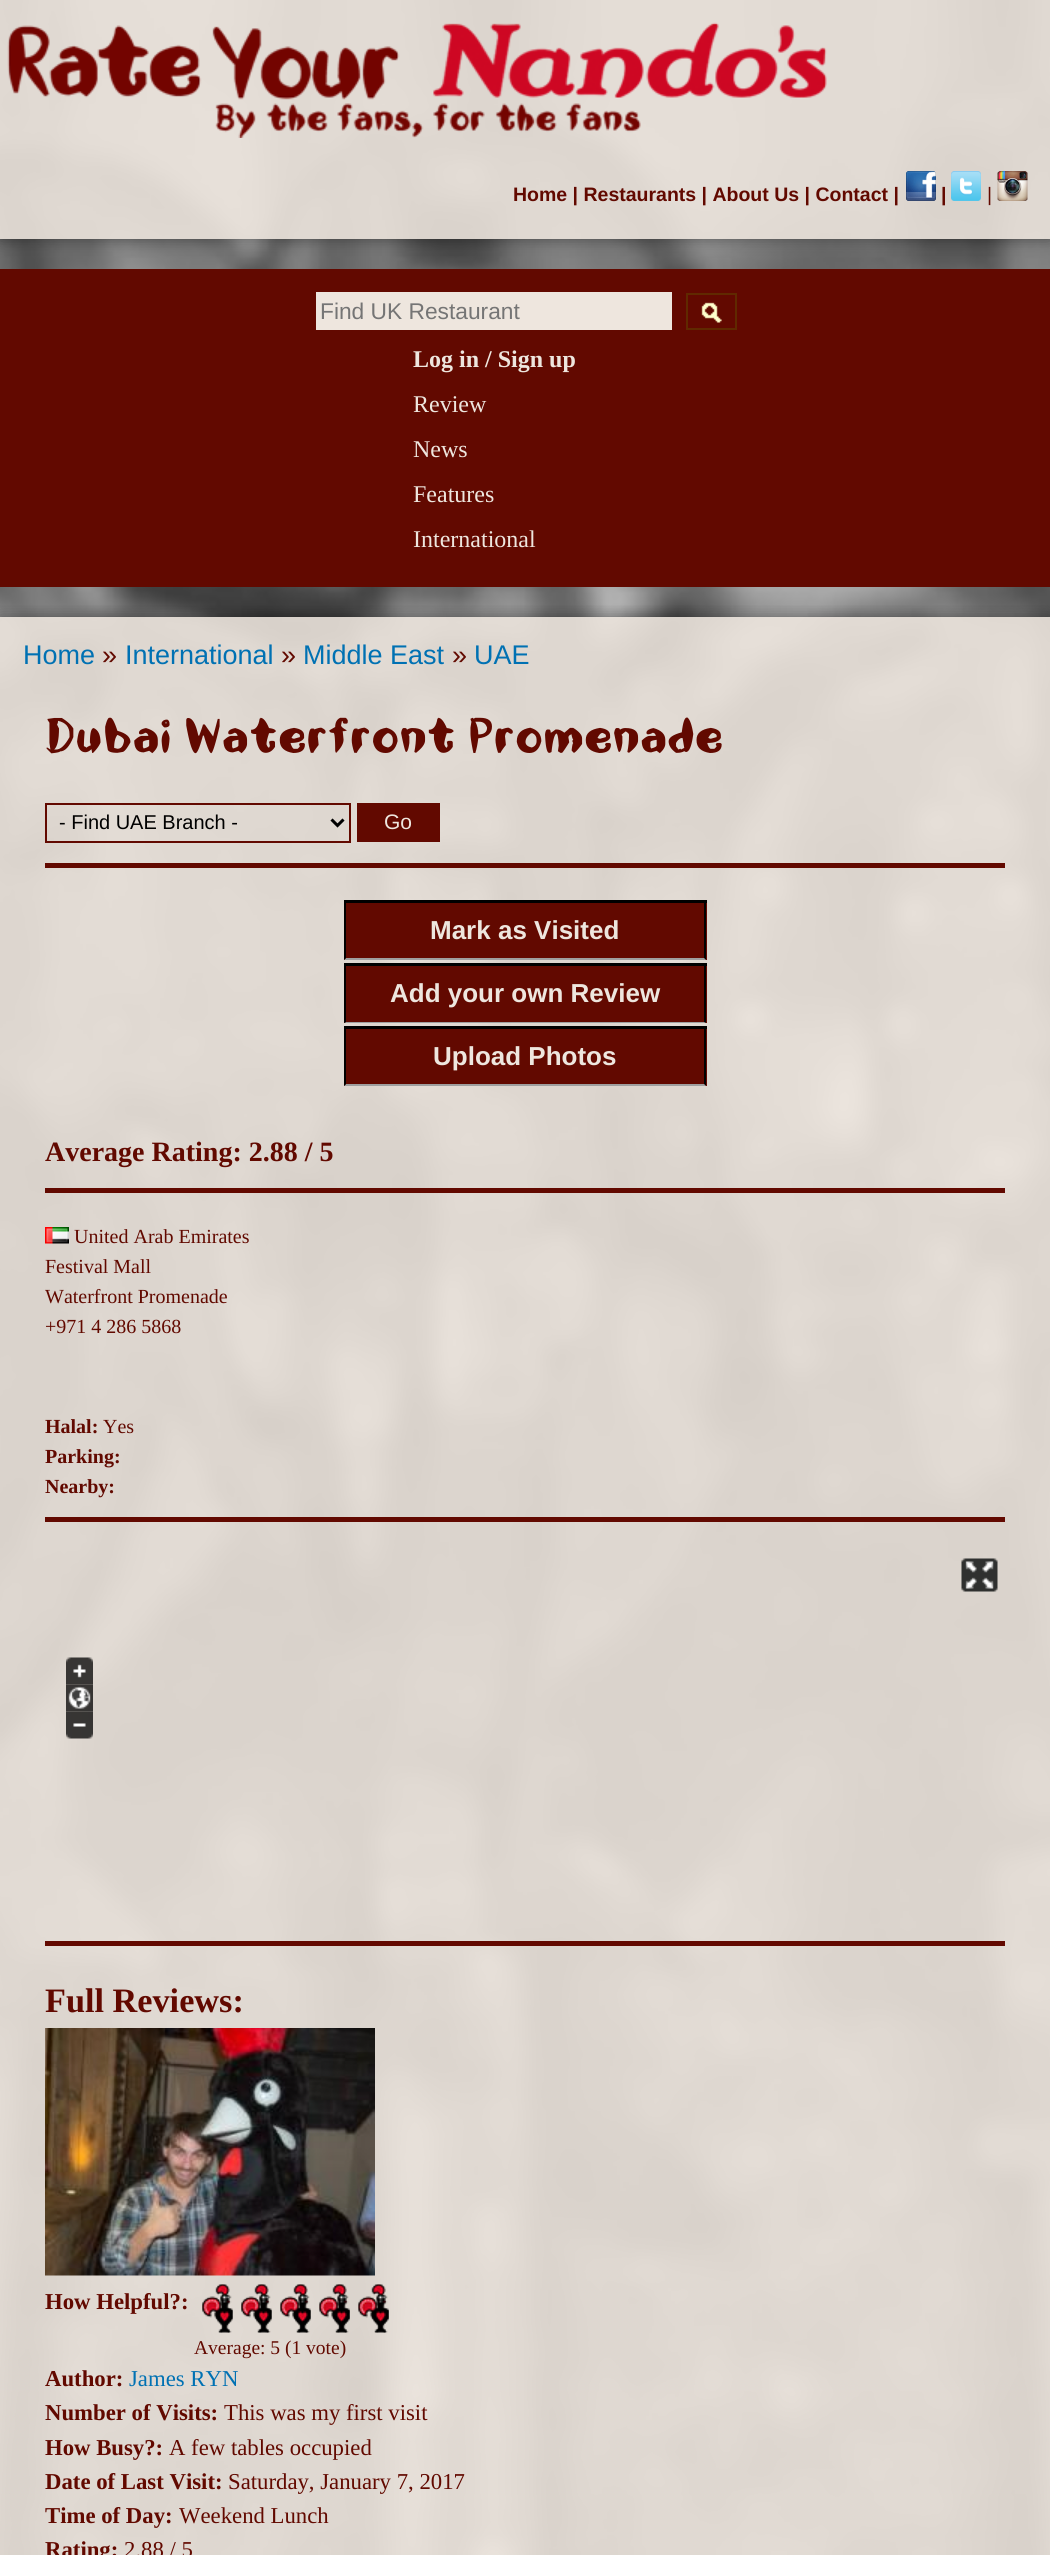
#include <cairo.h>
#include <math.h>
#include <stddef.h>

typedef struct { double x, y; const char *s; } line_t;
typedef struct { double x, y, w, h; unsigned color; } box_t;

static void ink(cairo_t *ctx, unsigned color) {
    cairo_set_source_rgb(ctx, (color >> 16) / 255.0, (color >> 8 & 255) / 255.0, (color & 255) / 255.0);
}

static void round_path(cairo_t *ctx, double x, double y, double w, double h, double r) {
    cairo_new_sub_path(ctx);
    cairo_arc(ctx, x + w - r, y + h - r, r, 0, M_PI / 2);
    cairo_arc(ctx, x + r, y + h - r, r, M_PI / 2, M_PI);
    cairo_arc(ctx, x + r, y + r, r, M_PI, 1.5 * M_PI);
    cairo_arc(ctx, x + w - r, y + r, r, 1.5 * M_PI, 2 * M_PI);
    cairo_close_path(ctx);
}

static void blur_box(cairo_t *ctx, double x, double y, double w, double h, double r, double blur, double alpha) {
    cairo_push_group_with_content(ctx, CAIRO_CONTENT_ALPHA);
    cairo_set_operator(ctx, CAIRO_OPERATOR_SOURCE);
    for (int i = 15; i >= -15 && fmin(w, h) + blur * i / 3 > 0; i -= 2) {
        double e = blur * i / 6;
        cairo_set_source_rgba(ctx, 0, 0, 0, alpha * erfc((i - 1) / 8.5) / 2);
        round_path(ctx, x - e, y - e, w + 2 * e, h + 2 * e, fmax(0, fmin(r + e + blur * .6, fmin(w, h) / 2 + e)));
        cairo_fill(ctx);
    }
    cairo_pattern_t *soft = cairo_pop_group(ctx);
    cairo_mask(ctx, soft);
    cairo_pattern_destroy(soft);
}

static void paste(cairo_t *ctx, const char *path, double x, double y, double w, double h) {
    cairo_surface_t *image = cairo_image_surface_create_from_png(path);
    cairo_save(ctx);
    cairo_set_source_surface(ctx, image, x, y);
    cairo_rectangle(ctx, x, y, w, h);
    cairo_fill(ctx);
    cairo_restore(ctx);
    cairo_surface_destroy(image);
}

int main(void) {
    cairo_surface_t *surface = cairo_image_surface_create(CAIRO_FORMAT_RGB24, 1050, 2555);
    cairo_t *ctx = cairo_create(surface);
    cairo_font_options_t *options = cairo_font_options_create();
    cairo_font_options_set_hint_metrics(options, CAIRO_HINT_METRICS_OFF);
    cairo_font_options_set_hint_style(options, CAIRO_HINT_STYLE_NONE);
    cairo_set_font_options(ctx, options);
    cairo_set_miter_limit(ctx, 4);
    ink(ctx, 0xFFFFFF);
    cairo_paint(ctx);
    paste(ctx, "media/1.png", 0, 0, 1050, 2555);
    cairo_save(ctx);
    cairo_set_fill_rule(ctx, CAIRO_FILL_RULE_EVEN_ODD);
    cairo_new_path(ctx);
    cairo_move_to(ctx, 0, 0);
    cairo_line_to(ctx, 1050, 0);
    cairo_line_to(ctx, 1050, 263);
    cairo_line_to(ctx, 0, 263);
    cairo_close_path(ctx);
    cairo_move_to(ctx, 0, 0);
    cairo_line_to(ctx, 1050, 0);
    cairo_line_to(ctx, 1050, 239);
    cairo_line_to(ctx, 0, 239);
    cairo_close_path(ctx);
    cairo_clip(ctx);
    ink(ctx, 0x000000);
    blur_box(ctx, 0, 0, 1050, 239, 0, 7.5, 0.4);
    cairo_restore(ctx);
    cairo_set_source_rgba(ctx, 0.933, 0.902, 0.871, 0.88);
    cairo_rectangle(ctx, 0, 0, 1050, 239);
    cairo_fill(ctx);
    paste(ctx, "media/2.png", 7, 22, 820, 116);
    cairo_select_font_face(ctx, "Liberation Sans", CAIRO_FONT_SLANT_NORMAL, CAIRO_FONT_WEIGHT_BOLD);
    cairo_set_font_size(ctx, 19.5);
    ink(ctx, 0x620900);
    cairo_move_to(ctx, 513, 201);
    cairo_show_text(ctx, "Home | Restaurants | About Us | Contact |");
    paste(ctx, "media/3.png", 906, 171, 30, 30);
    cairo_move_to(ctx, 941, 201);
    cairo_show_text(ctx, "|");
    paste(ctx, "media/4.png", 951, 171, 30, 30);
    cairo_select_font_face(ctx, "Liberation Sans", CAIRO_FONT_SLANT_NORMAL, CAIRO_FONT_WEIGHT_NORMAL);
    cairo_move_to(ctx, 987, 201);
    cairo_show_text(ctx, "|");
    paste(ctx, "media/5.png", 997, 171, 31, 30);
    cairo_rectangle(ctx, 0, 269, 1050, 318);
    cairo_fill(ctx);
    ink(ctx, 0xEEE6DE);
    cairo_rectangle(ctx, 316, 292, 356, 38);
    cairo_fill(ctx);
    cairo_set_font_size(ctx, 22.75);
    ink(ctx, 0x757575);
    cairo_move_to(ctx, 320, 319);
    cairo_show_text(ctx, "Find UK Restaurant");
    paste(ctx, "media/6.png", 701, 302, 21, 21);
    cairo_rectangle(ctx, 687, 294, 49, 35);
    ink(ctx, 0x602900);
    cairo_stroke(ctx);
    cairo_select_font_face(ctx, "Liberation Serif", CAIRO_FONT_SLANT_NORMAL, CAIRO_FONT_WEIGHT_BOLD);
    cairo_set_font_size(ctx, 24);
    ink(ctx, 0xEEE6DE);
    cairo_move_to(ctx, 413, 367);
    cairo_show_text(ctx, "Log in / Sign up");
    cairo_select_font_face(ctx, "Liberation Serif", CAIRO_FONT_SLANT_NORMAL, CAIRO_FONT_WEIGHT_NORMAL);
    {
        static const line_t items[] = {
            {413, 412, "Review"},
            {413, 457, "News"},
            {413, 502, "Features"},
            {413, 547, "International"},
        };
        for (size_t i = 0; i < sizeof items / sizeof *items; i++) {
            cairo_move_to(ctx, items[i].x, items[i].y);
            cairo_show_text(ctx, items[i].s);
        }
    }
    cairo_save(ctx);
    cairo_rectangle(ctx, 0, 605, 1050, 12);
    cairo_clip(ctx);
    ink(ctx, 0x000000);
    blur_box(ctx, 0, 617, 1050, 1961, 0, 7.5, 0.4);
    cairo_restore(ctx);
    cairo_set_source_rgba(ctx, 0.933, 0.902, 0.871, 0.88);
    cairo_rectangle(ctx, 0, 617, 1050, 1938);
    cairo_fill(ctx);
    cairo_select_font_face(ctx, "Liberation Sans", CAIRO_FONT_SLANT_NORMAL, CAIRO_FONT_WEIGHT_NORMAL);
    cairo_set_font_size(ctx, 27);
    ink(ctx, 0x0071B3);
    cairo_move_to(ctx, 23, 664);
    cairo_show_text(ctx, "Home");
    ink(ctx, 0x620900);
    cairo_move_to(ctx, 102, 664);
    cairo_show_text(ctx, "»");
    ink(ctx, 0x0071B3);
    cairo_move_to(ctx, 125, 664);
    cairo_show_text(ctx, "International");
    ink(ctx, 0x620900);
    cairo_move_to(ctx, 281, 664);
    cairo_show_text(ctx, "»");
    ink(ctx, 0x0071B3);
    cairo_move_to(ctx, 303, 664);
    cairo_show_text(ctx, "Middle East");
    ink(ctx, 0x620900);
    cairo_move_to(ctx, 452, 664);
    cairo_show_text(ctx, "»");
    ink(ctx, 0x0071B3);
    cairo_move_to(ctx, 474, 664);
    cairo_show_text(ctx, "UAE");
    cairo_select_font_face(ctx, "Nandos", CAIRO_FONT_SLANT_NORMAL, CAIRO_FONT_WEIGHT_NORMAL);
    cairo_set_font_size(ctx, 50.2);
    ink(ctx, 0x620900);
    cairo_move_to(ctx, 45, 753);
    cairo_show_text(ctx, "Dubai Waterfront Promenade");
    cairo_rectangle(ctx, 46, 804, 304, 38);
    cairo_stroke(ctx);
    cairo_new_path(ctx);
    cairo_move_to(ctx, 331.5, 819.5);
    cairo_line_to(ctx, 337.5, 825.5);
    cairo_line_to(ctx, 343.5, 819.5);
    ink(ctx, 0x000000);
    cairo_set_line_width(ctx, 3);
    cairo_stroke(ctx);
    cairo_select_font_face(ctx, "Liberation Sans", CAIRO_FONT_SLANT_NORMAL, CAIRO_FONT_WEIGHT_NORMAL);
    cairo_set_font_size(ctx, 20);
    cairo_move_to(ctx, 59, 829);
    cairo_show_text(ctx, "- Find UAE Branch -");
    ink(ctx, 0x620900);
    cairo_rectangle(ctx, 357, 803, 83, 39);
    cairo_fill(ctx);
    cairo_set_font_size(ctx, 21);
    ink(ctx, 0xEEE6DE);
    cairo_move_to(ctx, 384, 829);
    cairo_show_text(ctx, "Go");
    {
        static const box_t items[] = {
            {45, 863, 960, 5, 0x620900},
            {344, 903, 363, 57, 0x620900},
            {344, 900, 363, 3, 0x000000},
        };
        for (size_t i = 0; i < sizeof items / sizeof *items; i++) {
            ink(ctx, items[i].color);
            cairo_rectangle(ctx, items[i].x, items[i].y, items[i].w, items[i].h);
            cairo_fill(ctx);
        }
    }
    cairo_new_path(ctx);
    cairo_move_to(ctx, 706, 900);
    cairo_line_to(ctx, 706, 960);
    cairo_line_to(ctx, 704, 958);
    cairo_line_to(ctx, 704, 903);
    cairo_close_path(ctx);
    cairo_fill(ctx);
    ink(ctx, 0x9F9F9F);
    cairo_new_path(ctx);
    cairo_move_to(ctx, 706, 960);
    cairo_line_to(ctx, 344, 960);
    cairo_line_to(ctx, 346, 958);
    cairo_line_to(ctx, 704, 958);
    cairo_close_path(ctx);
    cairo_fill(ctx);
    ink(ctx, 0x000000);
    cairo_new_path(ctx);
    cairo_move_to(ctx, 344, 960);
    cairo_line_to(ctx, 344, 900);
    cairo_line_to(ctx, 346, 903);
    cairo_line_to(ctx, 346, 958);
    cairo_close_path(ctx);
    cairo_fill(ctx);
    cairo_select_font_face(ctx, "Liberation Sans", CAIRO_FONT_SLANT_NORMAL, CAIRO_FONT_WEIGHT_BOLD);
    cairo_set_font_size(ctx, 26);
    ink(ctx, 0xEEE6DE);
    cairo_move_to(ctx, 430, 939);
    cairo_show_text(ctx, "Mark as Visited");
    ink(ctx, 0x620900);
    cairo_rectangle(ctx, 344, 966, 363, 57);
    cairo_fill(ctx);
    ink(ctx, 0x000000);
    cairo_rectangle(ctx, 344, 963, 363, 3);
    cairo_fill(ctx);
    cairo_new_path(ctx);
    cairo_move_to(ctx, 706, 963);
    cairo_line_to(ctx, 706, 1023);
    cairo_line_to(ctx, 704, 1022);
    cairo_line_to(ctx, 704, 966);
    cairo_close_path(ctx);
    cairo_fill(ctx);
    ink(ctx, 0x9F9F9F);
    cairo_new_path(ctx);
    cairo_move_to(ctx, 706, 1023);
    cairo_line_to(ctx, 344, 1023);
    cairo_line_to(ctx, 346, 1022);
    cairo_line_to(ctx, 704, 1022);
    cairo_close_path(ctx);
    cairo_fill(ctx);
    ink(ctx, 0x000000);
    cairo_new_path(ctx);
    cairo_move_to(ctx, 344, 1023);
    cairo_line_to(ctx, 344, 963);
    cairo_line_to(ctx, 346, 966);
    cairo_line_to(ctx, 346, 1022);
    cairo_close_path(ctx);
    cairo_fill(ctx);
    ink(ctx, 0xEEE6DE);
    cairo_move_to(ctx, 390, 1002);
    cairo_show_text(ctx, "Add your own Review");
    ink(ctx, 0x620900);
    cairo_rectangle(ctx, 344, 1029, 363, 57);
    cairo_fill(ctx);
    ink(ctx, 0x000000);
    cairo_rectangle(ctx, 344, 1026, 363, 3);
    cairo_fill(ctx);
    cairo_new_path(ctx);
    cairo_move_to(ctx, 706, 1026);
    cairo_line_to(ctx, 706, 1086);
    cairo_line_to(ctx, 704, 1084);
    cairo_line_to(ctx, 704, 1029);
    cairo_close_path(ctx);
    cairo_fill(ctx);
    ink(ctx, 0x9F9F9F);
    cairo_new_path(ctx);
    cairo_move_to(ctx, 706, 1086);
    cairo_line_to(ctx, 344, 1086);
    cairo_line_to(ctx, 346, 1084);
    cairo_line_to(ctx, 704, 1084);
    cairo_close_path(ctx);
    cairo_fill(ctx);
    ink(ctx, 0x000000);
    cairo_new_path(ctx);
    cairo_move_to(ctx, 344, 1086);
    cairo_line_to(ctx, 344, 1026);
    cairo_line_to(ctx, 346, 1029);
    cairo_line_to(ctx, 346, 1084);
    cairo_close_path(ctx);
    cairo_fill(ctx);
    ink(ctx, 0xEEE6DE);
    cairo_move_to(ctx, 433, 1065);
    cairo_show_text(ctx, "Upload Photos");
    cairo_select_font_face(ctx, "Liberation Serif", CAIRO_FONT_SLANT_NORMAL, CAIRO_FONT_WEIGHT_BOLD);
    cairo_set_font_size(ctx, 28);
    ink(ctx, 0x620900);
    cairo_move_to(ctx, 45, 1161);
    cairo_show_text(ctx, "Average Rating: 2.88 / 5");
    cairo_rectangle(ctx, 45, 1188, 960, 5);
    cairo_fill(ctx);
    paste(ctx, "media/7.png", 45, 1227, 24, 17);
    cairo_select_font_face(ctx, "Liberation Serif", CAIRO_FONT_SLANT_NORMAL, CAIRO_FONT_WEIGHT_NORMAL);
    cairo_set_font_size(ctx, 20);
    {
        static const line_t items[] = {
            {74, 1243, "United Arab Emirates"},
            {45, 1273, "Festival Mall"},
            {45, 1303, "Waterfront Promenade"},
            {45, 1333, "+971 4 286 5868"},
        };
        for (size_t i = 0; i < sizeof items / sizeof *items; i++) {
            cairo_move_to(ctx, items[i].x, items[i].y);
            cairo_show_text(ctx, items[i].s);
        }
    }
    cairo_select_font_face(ctx, "Liberation Serif", CAIRO_FONT_SLANT_NORMAL, CAIRO_FONT_WEIGHT_BOLD);
    cairo_move_to(ctx, 45, 1433);
    cairo_show_text(ctx, "Halal:");
    cairo_select_font_face(ctx, "Liberation Serif", CAIRO_FONT_SLANT_NORMAL, CAIRO_FONT_WEIGHT_NORMAL);
    cairo_move_to(ctx, 103, 1433);
    cairo_show_text(ctx, "Yes");
    cairo_select_font_face(ctx, "Liberation Serif", CAIRO_FONT_SLANT_NORMAL, CAIRO_FONT_WEIGHT_BOLD);
    cairo_move_to(ctx, 45, 1463);
    cairo_show_text(ctx, "Parking:");
    cairo_move_to(ctx, 45, 1493);
    cairo_show_text(ctx, "Nearby:");
    cairo_rectangle(ctx, 45, 1517, 960, 5);
    cairo_fill(ctx);
    paste(ctx, "media/8.png", 961, 1558, 37, 34);
    paste(ctx, "media/9.png", 66, 1657, 27, 28);
    paste(ctx, "media/10.png", 66, 1684, 27, 28);
    paste(ctx, "media/11.png", 66, 1711, 27, 28);
    cairo_rectangle(ctx, 45, 1941, 960, 5);
    cairo_fill(ctx);
    cairo_set_font_size(ctx, 34.25);
    cairo_move_to(ctx, 45, 2012);
    cairo_show_text(ctx, "Full Reviews:");
    paste(ctx, "media/12.png", 45, 2028, 330, 248);
    cairo_set_font_size(ctx, 22.75);
    cairo_move_to(ctx, 45, 2309);
    cairo_show_text(ctx, "How Helpful?:");
    paste(ctx, "media/13.png", 202, 2284, 31, 49);
    paste(ctx, "media/14.png", 202, 2284, 31, 49);
    paste(ctx, "media/15.png", 241, 2284, 31, 49);
    paste(ctx, "media/16.png", 241, 2284, 31, 49);
    paste(ctx, "media/17.png", 280, 2284, 31, 49);
    paste(ctx, "media/18.png", 280, 2284, 31, 49);
    paste(ctx, "media/19.png", 319, 2284, 31, 49);
    paste(ctx, "media/20.png", 319, 2284, 31, 49);
    paste(ctx, "media/21.png", 358, 2284, 31, 49);
    paste(ctx, "media/22.png", 358, 2284, 31, 49);
    cairo_select_font_face(ctx, "Liberation Serif", CAIRO_FONT_SLANT_NORMAL, CAIRO_FONT_WEIGHT_NORMAL);
    cairo_set_font_size(ctx, 19.5);
    cairo_move_to(ctx, 194, 2354);
    cairo_show_text(ctx, "Average: 5 (1 vote)");
    cairo_select_font_face(ctx, "Liberation Serif", CAIRO_FONT_SLANT_NORMAL, CAIRO_FONT_WEIGHT_BOLD);
    cairo_set_font_size(ctx, 22.75);
    cairo_move_to(ctx, 45, 2386);
    cairo_show_text(ctx, "Author:");
    cairo_select_font_face(ctx, "Liberation Serif", CAIRO_FONT_SLANT_NORMAL, CAIRO_FONT_WEIGHT_NORMAL);
    ink(ctx, 0x0071B3);
    cairo_move_to(ctx, 129, 2386);
    cairo_show_text(ctx, "James RYN");
    cairo_select_font_face(ctx, "Liberation Serif", CAIRO_FONT_SLANT_NORMAL, CAIRO_FONT_WEIGHT_BOLD);
    ink(ctx, 0x620900);
    cairo_move_to(ctx, 45, 2420);
    cairo_show_text(ctx, "Number of Visits:");
    cairo_select_font_face(ctx, "Liberation Serif", CAIRO_FONT_SLANT_NORMAL, CAIRO_FONT_WEIGHT_NORMAL);
    cairo_move_to(ctx, 224, 2420);
    cairo_show_text(ctx, "This was my first visit");
    cairo_select_font_face(ctx, "Liberation Serif", CAIRO_FONT_SLANT_NORMAL, CAIRO_FONT_WEIGHT_BOLD);
    cairo_move_to(ctx, 45, 2455);
    cairo_show_text(ctx, "How Busy?:");
    cairo_select_font_face(ctx, "Liberation Serif", CAIRO_FONT_SLANT_NORMAL, CAIRO_FONT_WEIGHT_NORMAL);
    cairo_move_to(ctx, 169, 2455);
    cairo_show_text(ctx, "A few tables occupied");
    cairo_select_font_face(ctx, "Liberation Serif", CAIRO_FONT_SLANT_NORMAL, CAIRO_FONT_WEIGHT_BOLD);
    cairo_move_to(ctx, 45, 2489);
    cairo_show_text(ctx, "Date of Last Visit:");
    cairo_select_font_face(ctx, "Liberation Serif", CAIRO_FONT_SLANT_NORMAL, CAIRO_FONT_WEIGHT_NORMAL);
    cairo_move_to(ctx, 228, 2489);
    cairo_show_text(ctx, "Saturday, January 7, 2017");
    cairo_select_font_face(ctx, "Liberation Serif", CAIRO_FONT_SLANT_NORMAL, CAIRO_FONT_WEIGHT_BOLD);
    cairo_move_to(ctx, 45, 2523);
    cairo_show_text(ctx, "Time of Day:");
    cairo_select_font_face(ctx, "Liberation Serif", CAIRO_FONT_SLANT_NORMAL, CAIRO_FONT_WEIGHT_NORMAL);
    cairo_move_to(ctx, 179, 2523);
    cairo_show_text(ctx, "Weekend Lunch");
    cairo_select_font_face(ctx, "Liberation Serif", CAIRO_FONT_SLANT_NORMAL, CAIRO_FONT_WEIGHT_BOLD);
    cairo_move_to(ctx, 45, 2557);
    cairo_show_text(ctx, "Rating:");
    cairo_select_font_face(ctx, "Liberation Serif", CAIRO_FONT_SLANT_NORMAL, CAIRO_FONT_WEIGHT_NORMAL);
    cairo_move_to(ctx, 124, 2557);
    cairo_show_text(ctx, "2.88 / 5");
    cairo_surface_write_to_png(surface, "image.png");
    cairo_font_options_destroy(options);
    cairo_destroy(ctx);
    cairo_surface_destroy(surface);
    return 0;
}
